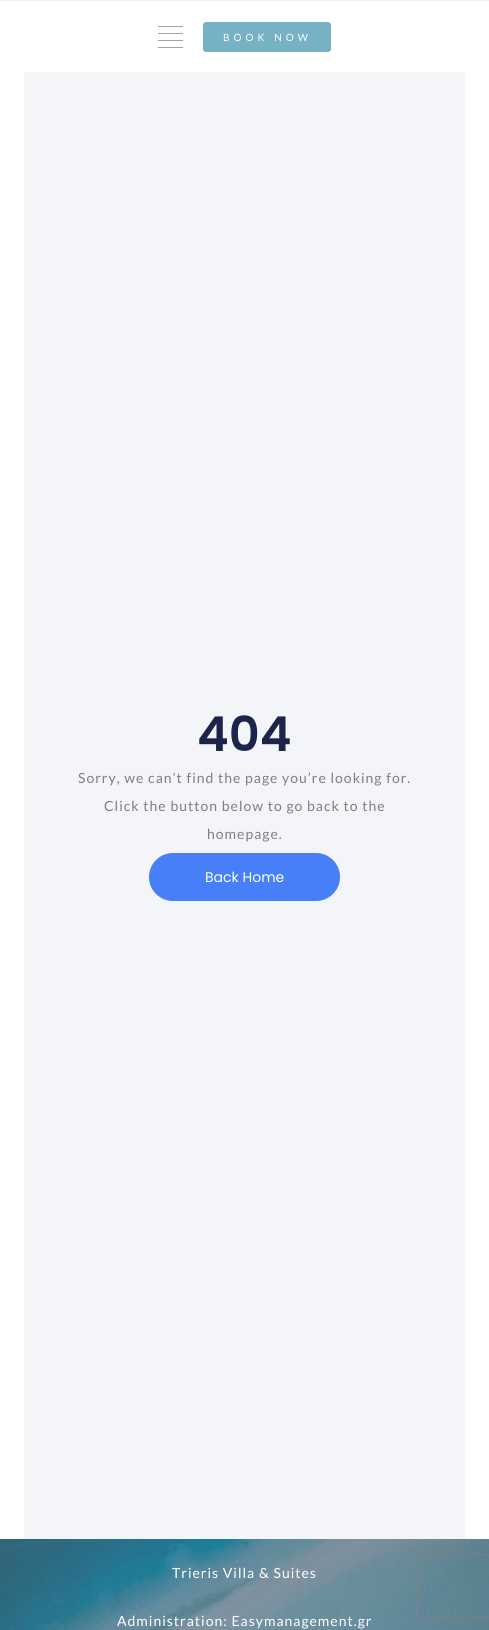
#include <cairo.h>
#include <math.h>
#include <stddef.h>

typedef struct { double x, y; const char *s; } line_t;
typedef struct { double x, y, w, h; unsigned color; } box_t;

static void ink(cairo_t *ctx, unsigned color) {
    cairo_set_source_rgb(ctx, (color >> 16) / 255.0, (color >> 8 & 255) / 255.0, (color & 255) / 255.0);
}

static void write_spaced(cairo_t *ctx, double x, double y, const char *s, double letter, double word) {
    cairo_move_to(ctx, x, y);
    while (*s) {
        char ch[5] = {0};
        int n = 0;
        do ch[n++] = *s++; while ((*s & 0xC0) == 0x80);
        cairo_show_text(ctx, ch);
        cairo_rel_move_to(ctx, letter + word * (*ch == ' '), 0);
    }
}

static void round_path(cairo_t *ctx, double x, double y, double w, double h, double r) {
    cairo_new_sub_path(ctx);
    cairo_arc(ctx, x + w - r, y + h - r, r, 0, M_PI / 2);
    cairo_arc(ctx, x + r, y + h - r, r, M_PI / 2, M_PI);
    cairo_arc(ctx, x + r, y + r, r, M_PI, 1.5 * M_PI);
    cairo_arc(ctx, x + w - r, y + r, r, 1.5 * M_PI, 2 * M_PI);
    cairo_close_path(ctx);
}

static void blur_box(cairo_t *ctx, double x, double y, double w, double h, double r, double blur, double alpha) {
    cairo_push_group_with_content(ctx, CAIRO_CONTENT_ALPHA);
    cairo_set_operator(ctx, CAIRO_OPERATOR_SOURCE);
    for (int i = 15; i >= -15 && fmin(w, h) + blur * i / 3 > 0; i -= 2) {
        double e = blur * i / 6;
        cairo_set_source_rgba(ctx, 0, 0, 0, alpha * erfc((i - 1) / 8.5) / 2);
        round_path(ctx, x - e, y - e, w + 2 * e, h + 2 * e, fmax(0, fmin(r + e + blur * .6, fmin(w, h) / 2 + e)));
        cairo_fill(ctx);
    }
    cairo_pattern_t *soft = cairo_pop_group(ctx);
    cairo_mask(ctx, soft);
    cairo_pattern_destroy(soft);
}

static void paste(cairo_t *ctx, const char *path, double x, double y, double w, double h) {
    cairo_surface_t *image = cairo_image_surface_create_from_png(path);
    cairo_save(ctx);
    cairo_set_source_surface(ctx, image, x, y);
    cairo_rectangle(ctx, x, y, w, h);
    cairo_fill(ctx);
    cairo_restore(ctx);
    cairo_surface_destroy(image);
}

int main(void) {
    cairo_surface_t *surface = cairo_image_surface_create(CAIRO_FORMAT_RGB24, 489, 1630);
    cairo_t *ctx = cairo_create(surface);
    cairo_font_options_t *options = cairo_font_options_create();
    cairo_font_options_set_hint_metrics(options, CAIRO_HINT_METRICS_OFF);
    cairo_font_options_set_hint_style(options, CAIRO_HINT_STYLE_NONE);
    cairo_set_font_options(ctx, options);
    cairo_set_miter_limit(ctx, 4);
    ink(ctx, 0xFFFFFF);
    cairo_paint(ctx);
    {
        static const box_t items[] = {
            {0, 0, 489, 1, 0xF1F1F1},
            {158, 26, 25, 1, 0xA3A3A3},
            {158, 33, 25, 1, 0xA3A3A3},
            {158, 40, 25, 1, 0xA3A3A3},
            {158, 47, 25, 1, 0xA3A3A3},
        };
        for (size_t i = 0; i < sizeof items / sizeof *items; i++) {
            ink(ctx, items[i].color);
            cairo_rectangle(ctx, items[i].x, items[i].y, items[i].w, items[i].h);
            cairo_fill(ctx);
        }
    }
    ink(ctx, 0x76B1C4);
    round_path(ctx, 203, 22, 128, 30, 3);
    cairo_fill(ctx);
    cairo_select_font_face(ctx, "Lato", CAIRO_FONT_SLANT_NORMAL, CAIRO_FONT_WEIGHT_NORMAL);
    cairo_set_font_size(ctx, 10);
    ink(ctx, 0xFFFFFF);
    write_spaced(ctx, 223, 41, "BOOK NOW", 4, 0);
    ink(ctx, 0xF3F5F8);
    cairo_rectangle(ctx, 24, 72, 441, 1467);
    cairo_fill(ctx);
    cairo_select_font_face(ctx, "Poppins SemiBold", CAIRO_FONT_SLANT_NORMAL, CAIRO_FONT_WEIGHT_NORMAL);
    cairo_set_font_size(ctx, 48);
    ink(ctx, 0x1C244B);
    cairo_move_to(ctx, 197, 751);
    cairo_show_text(ctx, "404");
    cairo_select_font_face(ctx, "Lato", CAIRO_FONT_SLANT_NORMAL, CAIRO_FONT_WEIGHT_NORMAL);
    cairo_set_font_size(ctx, 14);
    ink(ctx, 0x7E7E7E);
    {
        static const line_t items[] = {
            {78, 783, "Sorry, we can’t find the page you’re looking for."},
            {104, 811, "Click the button below to go back to the"},
            {207, 839, "homepage."},
        };
        for (size_t i = 0; i < sizeof items / sizeof *items; i++) {
            write_spaced(ctx, items[i].x, items[i].y, items[i].s, 1, 0);
        }
    }
    ink(ctx, 0x467FF7);
    round_path(ctx, 149.5, 853.5, 190, 47, 23.5);
    cairo_fill_preserve(ctx);
    cairo_set_line_width(ctx, 1);
    cairo_stroke(ctx);
    cairo_select_font_face(ctx, "Poppins", CAIRO_FONT_SLANT_NORMAL, CAIRO_FONT_WEIGHT_NORMAL);
    ink(ctx, 0xFFFFFF);
    cairo_move_to(ctx, 205, 882);
    cairo_show_text(ctx, "Back Home");
    paste(ctx, "media/1.png", 0, 1539, 489, 91);
    cairo_select_font_face(ctx, "Lato", CAIRO_FONT_SLANT_NORMAL, CAIRO_FONT_WEIGHT_NORMAL);
    write_spaced(ctx, 172, 1578, "Trieris Villa & Suites", 1, 0);
    write_spaced(ctx, 117, 1626, "Administration: Easymanagement.gr", 1, 0);
    cairo_save(ctx);
    cairo_set_fill_rule(ctx, CAIRO_FILL_RULE_EVEN_ODD);
    cairo_new_path(ctx);
    cairo_move_to(ctx, 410, 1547);
    cairo_line_to(ctx, 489, 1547);
    cairo_line_to(ctx, 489, 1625);
    cairo_line_to(ctx, 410, 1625);
    cairo_close_path(ctx);
    cairo_move_to(ctx, 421, 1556);
    cairo_line_to(ctx, 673, 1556);
    cairo_curve_to(ctx, 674, 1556, 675, 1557, 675, 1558);
    cairo_line_to(ctx, 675, 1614);
    cairo_curve_to(ctx, 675, 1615, 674, 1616, 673, 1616);
    cairo_line_to(ctx, 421, 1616);
    cairo_curve_to(ctx, 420, 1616, 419, 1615, 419, 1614);
    cairo_line_to(ctx, 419, 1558);
    cairo_curve_to(ctx, 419, 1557, 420, 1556, 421, 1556);
    cairo_close_path(ctx);
    cairo_clip(ctx);
    ink(ctx, 0x808080);
    blur_box(ctx, 419, 1556, 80, 60, 2, 2.5, 1);
    cairo_restore(ctx);
    cairo_surface_write_to_png(surface, "image.png");
    cairo_font_options_destroy(options);
    cairo_destroy(ctx);
    cairo_surface_destroy(surface);
    return 0;
}
